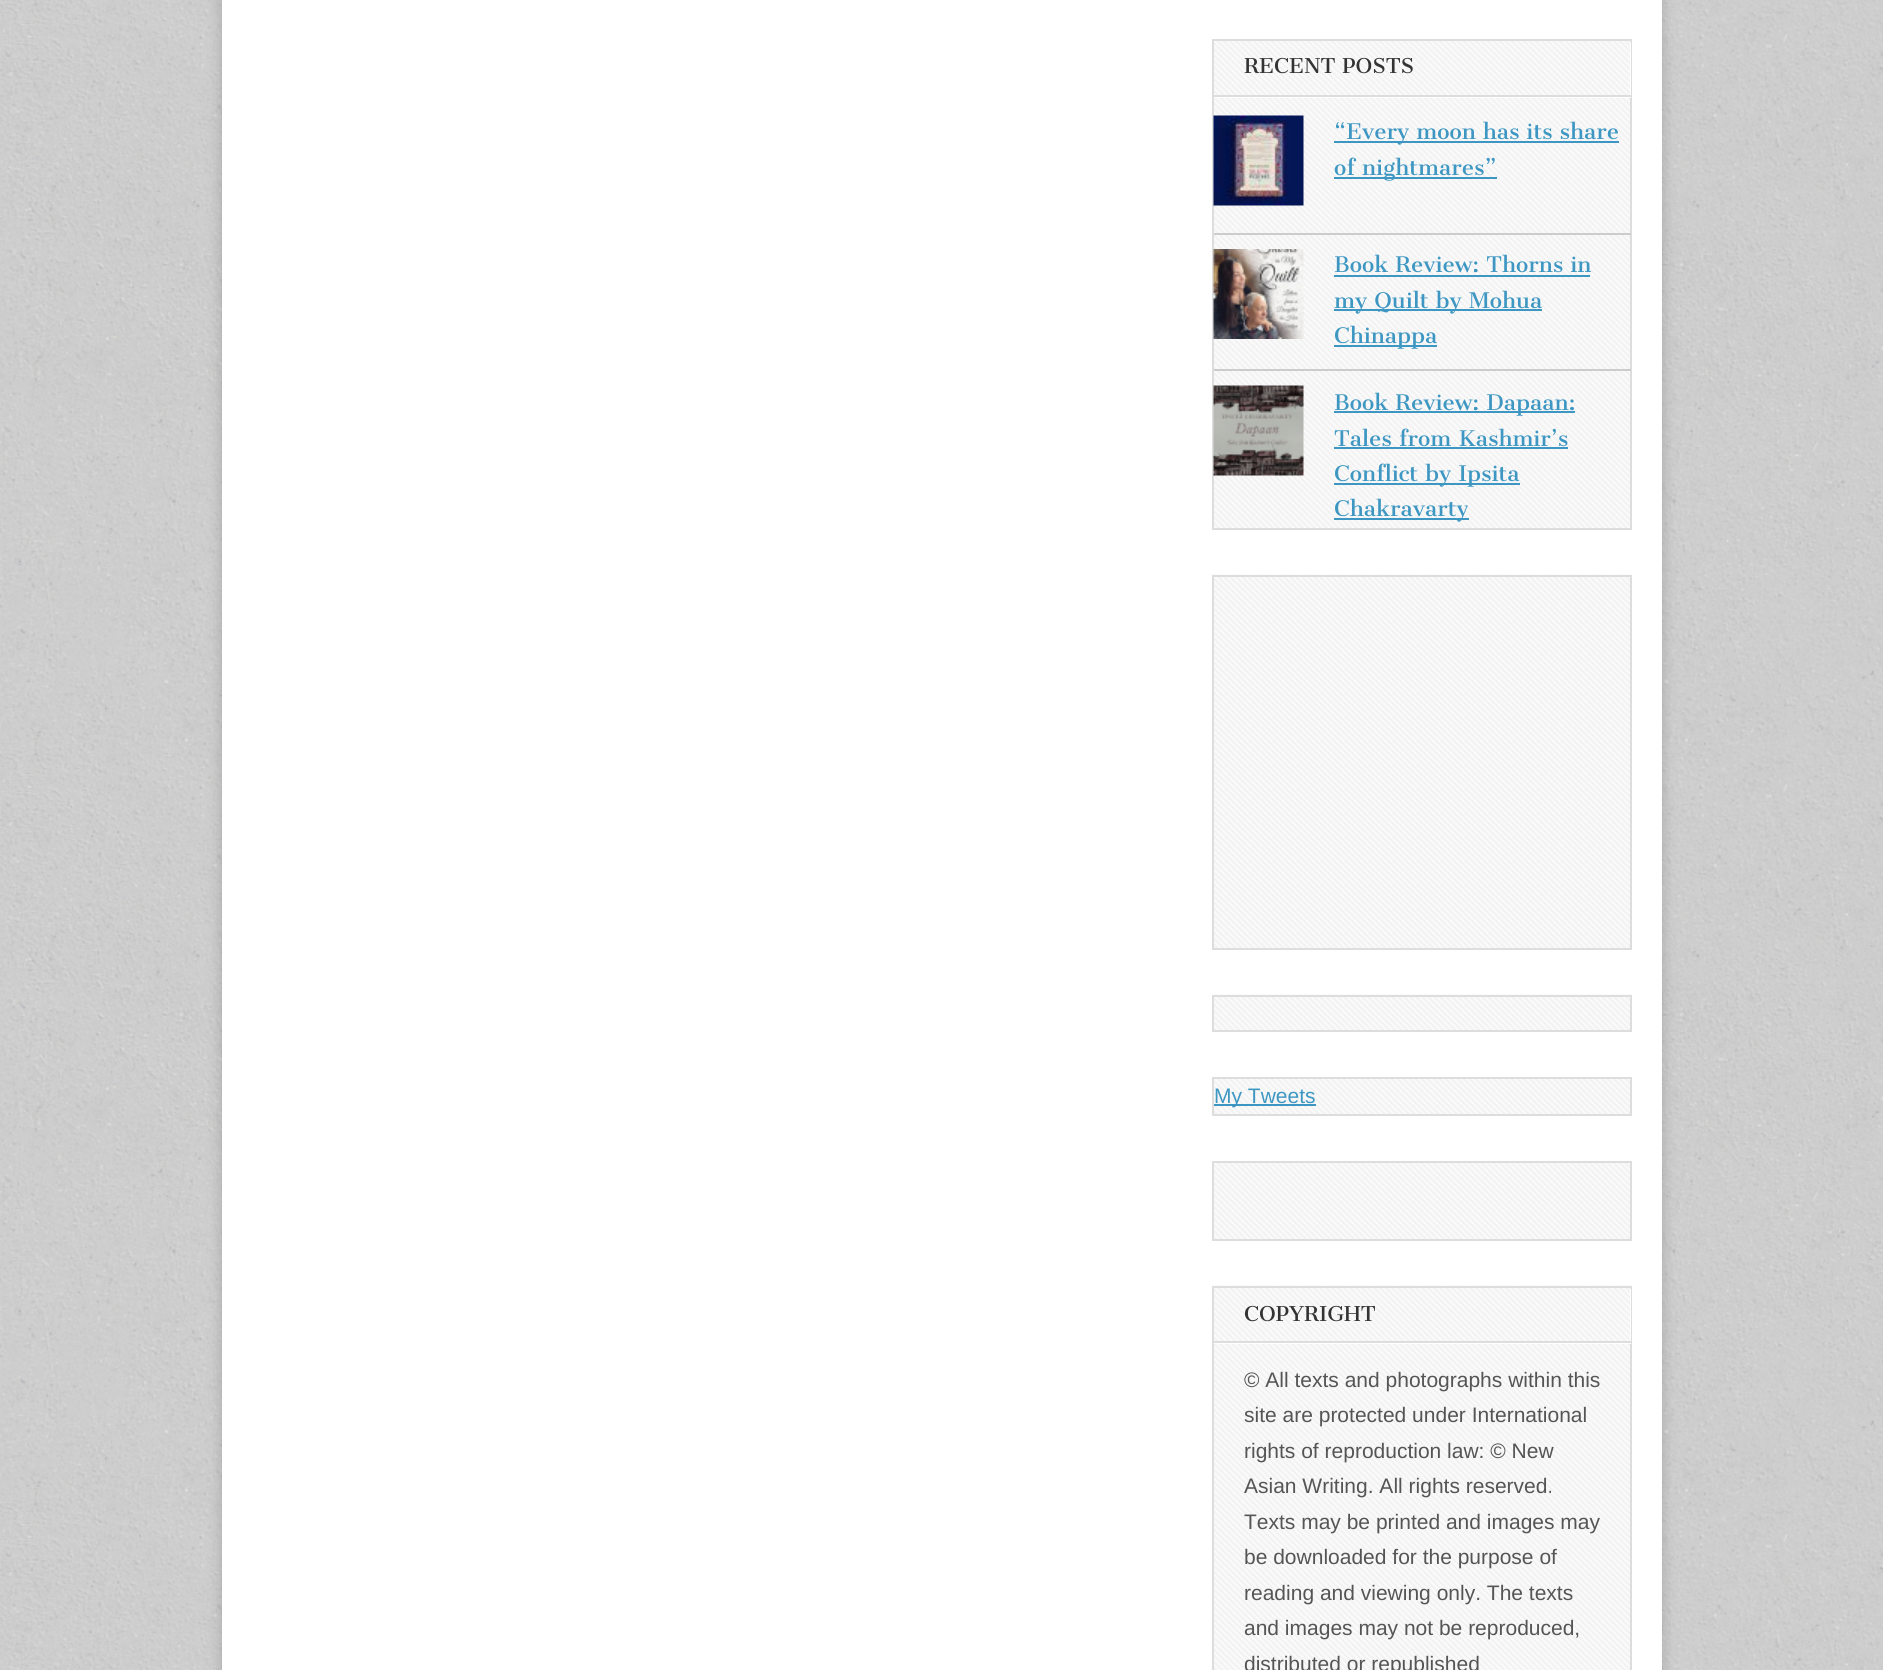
#include <cairo.h>
#include <math.h>
#include <stddef.h>

typedef struct { double x, y; const char *s; } line_t;

static void ink(cairo_t *ctx, unsigned color) {
    cairo_set_source_rgb(ctx, (color >> 16) / 255.0, (color >> 8 & 255) / 255.0, (color & 255) / 255.0);
}

static void round_path(cairo_t *ctx, double x, double y, double w, double h, double r) {
    cairo_new_sub_path(ctx);
    cairo_arc(ctx, x + w - r, y + h - r, r, 0, M_PI / 2);
    cairo_arc(ctx, x + r, y + h - r, r, M_PI / 2, M_PI);
    cairo_arc(ctx, x + r, y + r, r, M_PI, 1.5 * M_PI);
    cairo_arc(ctx, x + w - r, y + r, r, 1.5 * M_PI, 2 * M_PI);
    cairo_close_path(ctx);
}

static void blur_box(cairo_t *ctx, double x, double y, double w, double h, double r, double blur, double alpha) {
    cairo_push_group_with_content(ctx, CAIRO_CONTENT_ALPHA);
    cairo_set_operator(ctx, CAIRO_OPERATOR_SOURCE);
    for (int i = 15; i >= -15 && fmin(w, h) + blur * i / 3 > 0; i -= 2) {
        double e = blur * i / 6;
        cairo_set_source_rgba(ctx, 0, 0, 0, alpha * erfc((i - 1) / 8.5) / 2);
        round_path(ctx, x - e, y - e, w + 2 * e, h + 2 * e, fmax(0, fmin(r + e + blur * .6, fmin(w, h) / 2 + e)));
        cairo_fill(ctx);
    }
    cairo_pattern_t *soft = cairo_pop_group(ctx);
    cairo_mask(ctx, soft);
    cairo_pattern_destroy(soft);
}

static void paste(cairo_t *ctx, const char *path, double x, double y, double w, double h) {
    cairo_surface_t *image = cairo_image_surface_create_from_png(path);
    cairo_save(ctx);
    cairo_set_source_surface(ctx, image, x, y);
    cairo_rectangle(ctx, x, y, w, h);
    cairo_fill(ctx);
    cairo_restore(ctx);
    cairo_surface_destroy(image);
}

int main(void) {
    cairo_surface_t *surface = cairo_image_surface_create(CAIRO_FORMAT_RGB24, 1883, 1670);
    cairo_t *ctx = cairo_create(surface);
    cairo_font_options_t *options = cairo_font_options_create();
    cairo_font_options_set_hint_metrics(options, CAIRO_HINT_METRICS_OFF);
    cairo_font_options_set_hint_style(options, CAIRO_HINT_STYLE_NONE);
    cairo_set_font_options(ctx, options);
    cairo_set_miter_limit(ctx, 4);
    ink(ctx, 0xFFFFFF);
    cairo_paint(ctx);
    paste(ctx, "media/1.png", 0, 0, 1883, 1670);
    ink(ctx, 0x000000);
    blur_box(ctx, 222, -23, 1440, 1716, 0, 7.5, 0.2);
    ink(ctx, 0xFFFFFF);
    cairo_rectangle(ctx, 222, 0, 1440, 1670);
    cairo_fill(ctx);
    paste(ctx, "media/2.png", 1214, 41, 416, 487);
    cairo_rectangle(ctx, 1213, 40, 418, 489);
    ink(ctx, 0xDDDDDD);
    cairo_stroke(ctx);
    ink(ctx, 0xFFFFFF);
    cairo_new_path(ctx);
    cairo_move_to(ctx, 1214, 96);
    cairo_line_to(ctx, 1214, 98);
    cairo_line_to(ctx, 1631, 98);
    cairo_line_to(ctx, 1631, 42);
    cairo_line_to(ctx, 1630, 42);
    cairo_line_to(ctx, 1630, 96);
    cairo_close_path(ctx);
    cairo_fill(ctx);
    ink(ctx, 0xDDDDDD);
    cairo_rectangle(ctx, 1214, 95, 417, 2);
    cairo_fill(ctx);
    cairo_select_font_face(ctx, "Cantata One", CAIRO_FONT_SLANT_NORMAL, CAIRO_FONT_WEIGHT_NORMAL);
    cairo_set_font_size(ctx, 20);
    ink(ctx, 0x333333);
    cairo_move_to(ctx, 1244, 73);
    cairo_show_text(ctx, "RECENT POSTS");
    ink(ctx, 0xCCCCCC);
    cairo_rectangle(ctx, 1214, 233, 417, 2);
    cairo_fill(ctx);
    paste(ctx, "media/3.png", 1213, 115, 91, 91);
    ink(ctx, 0x3D97C2);
    cairo_rectangle(ctx, 1334, 141, 285, 2);
    cairo_fill(ctx);
    cairo_set_font_size(ctx, 21);
    cairo_move_to(ctx, 1334, 139);
    cairo_show_text(ctx, "“Every moon has its share");
    cairo_rectangle(ctx, 1334, 177, 163, 2);
    cairo_fill(ctx);
    cairo_move_to(ctx, 1334, 175);
    cairo_show_text(ctx, "of nightmares”");
    ink(ctx, 0xCCCCCC);
    cairo_rectangle(ctx, 1214, 369, 417, 2);
    cairo_fill(ctx);
    paste(ctx, "media/4.png", 1213, 249, 91, 90);
    ink(ctx, 0x3D97C2);
    cairo_move_to(ctx, 1334, 272);
    cairo_show_text(ctx, "Book Review: Thorns in");
    cairo_rectangle(ctx, 1334, 275, 256, 2);
    cairo_fill(ctx);
    cairo_rectangle(ctx, 1334, 309, 208, 2);
    cairo_fill(ctx);
    cairo_move_to(ctx, 1334, 308);
    cairo_show_text(ctx, "my Quilt by Mohua");
    cairo_rectangle(ctx, 1334, 345, 103, 2);
    cairo_fill(ctx);
    cairo_move_to(ctx, 1334, 343);
    cairo_show_text(ctx, "Chinappa");
    paste(ctx, "media/5.png", 1213, 385, 91, 91);
    cairo_rectangle(ctx, 1334, 411, 241, 2);
    cairo_fill(ctx);
    cairo_move_to(ctx, 1334, 410);
    cairo_show_text(ctx, "Book Review: Dapaan:");
    cairo_move_to(ctx, 1334, 446);
    cairo_show_text(ctx, "Tales from Kashmir’s");
    cairo_rectangle(ctx, 1334, 447, 234, 2);
    cairo_fill(ctx);
    cairo_rectangle(ctx, 1334, 483, 186, 2);
    cairo_fill(ctx);
    cairo_move_to(ctx, 1334, 481);
    cairo_show_text(ctx, "Conflict by Ipsita");
    cairo_rectangle(ctx, 1334, 518, 135, 2);
    cairo_fill(ctx);
    cairo_move_to(ctx, 1334, 516);
    cairo_show_text(ctx, "Chakravarty");
    paste(ctx, "media/6.png", 1212, 574, 420, 374);
    cairo_rectangle(ctx, 1213, 576, 418, 373);
    ink(ctx, 0xDDDDDD);
    cairo_stroke(ctx);
    paste(ctx, "media/7.png", 1212, 994, 420, 36);
    cairo_rectangle(ctx, 1213, 996, 418, 35);
    cairo_stroke(ctx);
    paste(ctx, "media/8.png", 1214, 1079, 416, 35);
    cairo_rectangle(ctx, 1213, 1078, 418, 37);
    cairo_stroke(ctx);
    ink(ctx, 0x3D97C2);
    cairo_rectangle(ctx, 1214, 1104, 102, 2);
    cairo_fill(ctx);
    cairo_select_font_face(ctx, "Liberation Sans", CAIRO_FONT_SLANT_NORMAL, CAIRO_FONT_WEIGHT_NORMAL);
    cairo_move_to(ctx, 1214, 1103);
    cairo_show_text(ctx, "My Tweets");
    paste(ctx, "media/9.png", 1214, 1163, 416, 76);
    cairo_rectangle(ctx, 1213, 1162, 418, 78);
    ink(ctx, 0xDDDDDD);
    cairo_stroke(ctx);
    paste(ctx, "media/10.png", 1212, 1285, 420, 385);
    cairo_rectangle(ctx, 1213, 1287, 418, 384);
    cairo_stroke(ctx);
    ink(ctx, 0xFFFFFF);
    cairo_new_path(ctx);
    cairo_move_to(ctx, 1214, 1342);
    cairo_line_to(ctx, 1214, 1344);
    cairo_line_to(ctx, 1631, 1344);
    cairo_line_to(ctx, 1631, 1289);
    cairo_line_to(ctx, 1630, 1289);
    cairo_line_to(ctx, 1630, 1342);
    cairo_close_path(ctx);
    cairo_fill(ctx);
    ink(ctx, 0xDDDDDD);
    cairo_rectangle(ctx, 1214, 1341, 417, 2);
    cairo_fill(ctx);
    cairo_select_font_face(ctx, "Cantata One", CAIRO_FONT_SLANT_NORMAL, CAIRO_FONT_WEIGHT_NORMAL);
    cairo_set_font_size(ctx, 20);
    ink(ctx, 0x333333);
    cairo_move_to(ctx, 1244, 1321);
    cairo_show_text(ctx, "COPYRIGHT");
    cairo_select_font_face(ctx, "Liberation Sans", CAIRO_FONT_SLANT_NORMAL, CAIRO_FONT_WEIGHT_NORMAL);
    cairo_set_font_size(ctx, 21);
    ink(ctx, 0x555555);
    {
        static const line_t items[] = {
            {1244, 1387, "© All texts and photographs within this"},
            {1244, 1422, "site are protected under International"},
            {1244, 1458, "rights of reproduction law: © New"},
            {1244, 1493, "Asian Writing. All rights reserved."},
            {1244, 1529, "Texts may be printed and images may"},
            {1244, 1564, "be downloaded for the purpose of"},
            {1244, 1600, "reading and viewing only. The texts"},
            {1244, 1635, "and images may not be reproduced,"},
            {1244, 1671, "distributed or republished"},
        };
        for (size_t i = 0; i < sizeof items / sizeof *items; i++) {
            cairo_move_to(ctx, items[i].x, items[i].y);
            cairo_show_text(ctx, items[i].s);
        }
    }
    cairo_surface_write_to_png(surface, "image.png");
    cairo_font_options_destroy(options);
    cairo_destroy(ctx);
    cairo_surface_destroy(surface);
    return 0;
}
